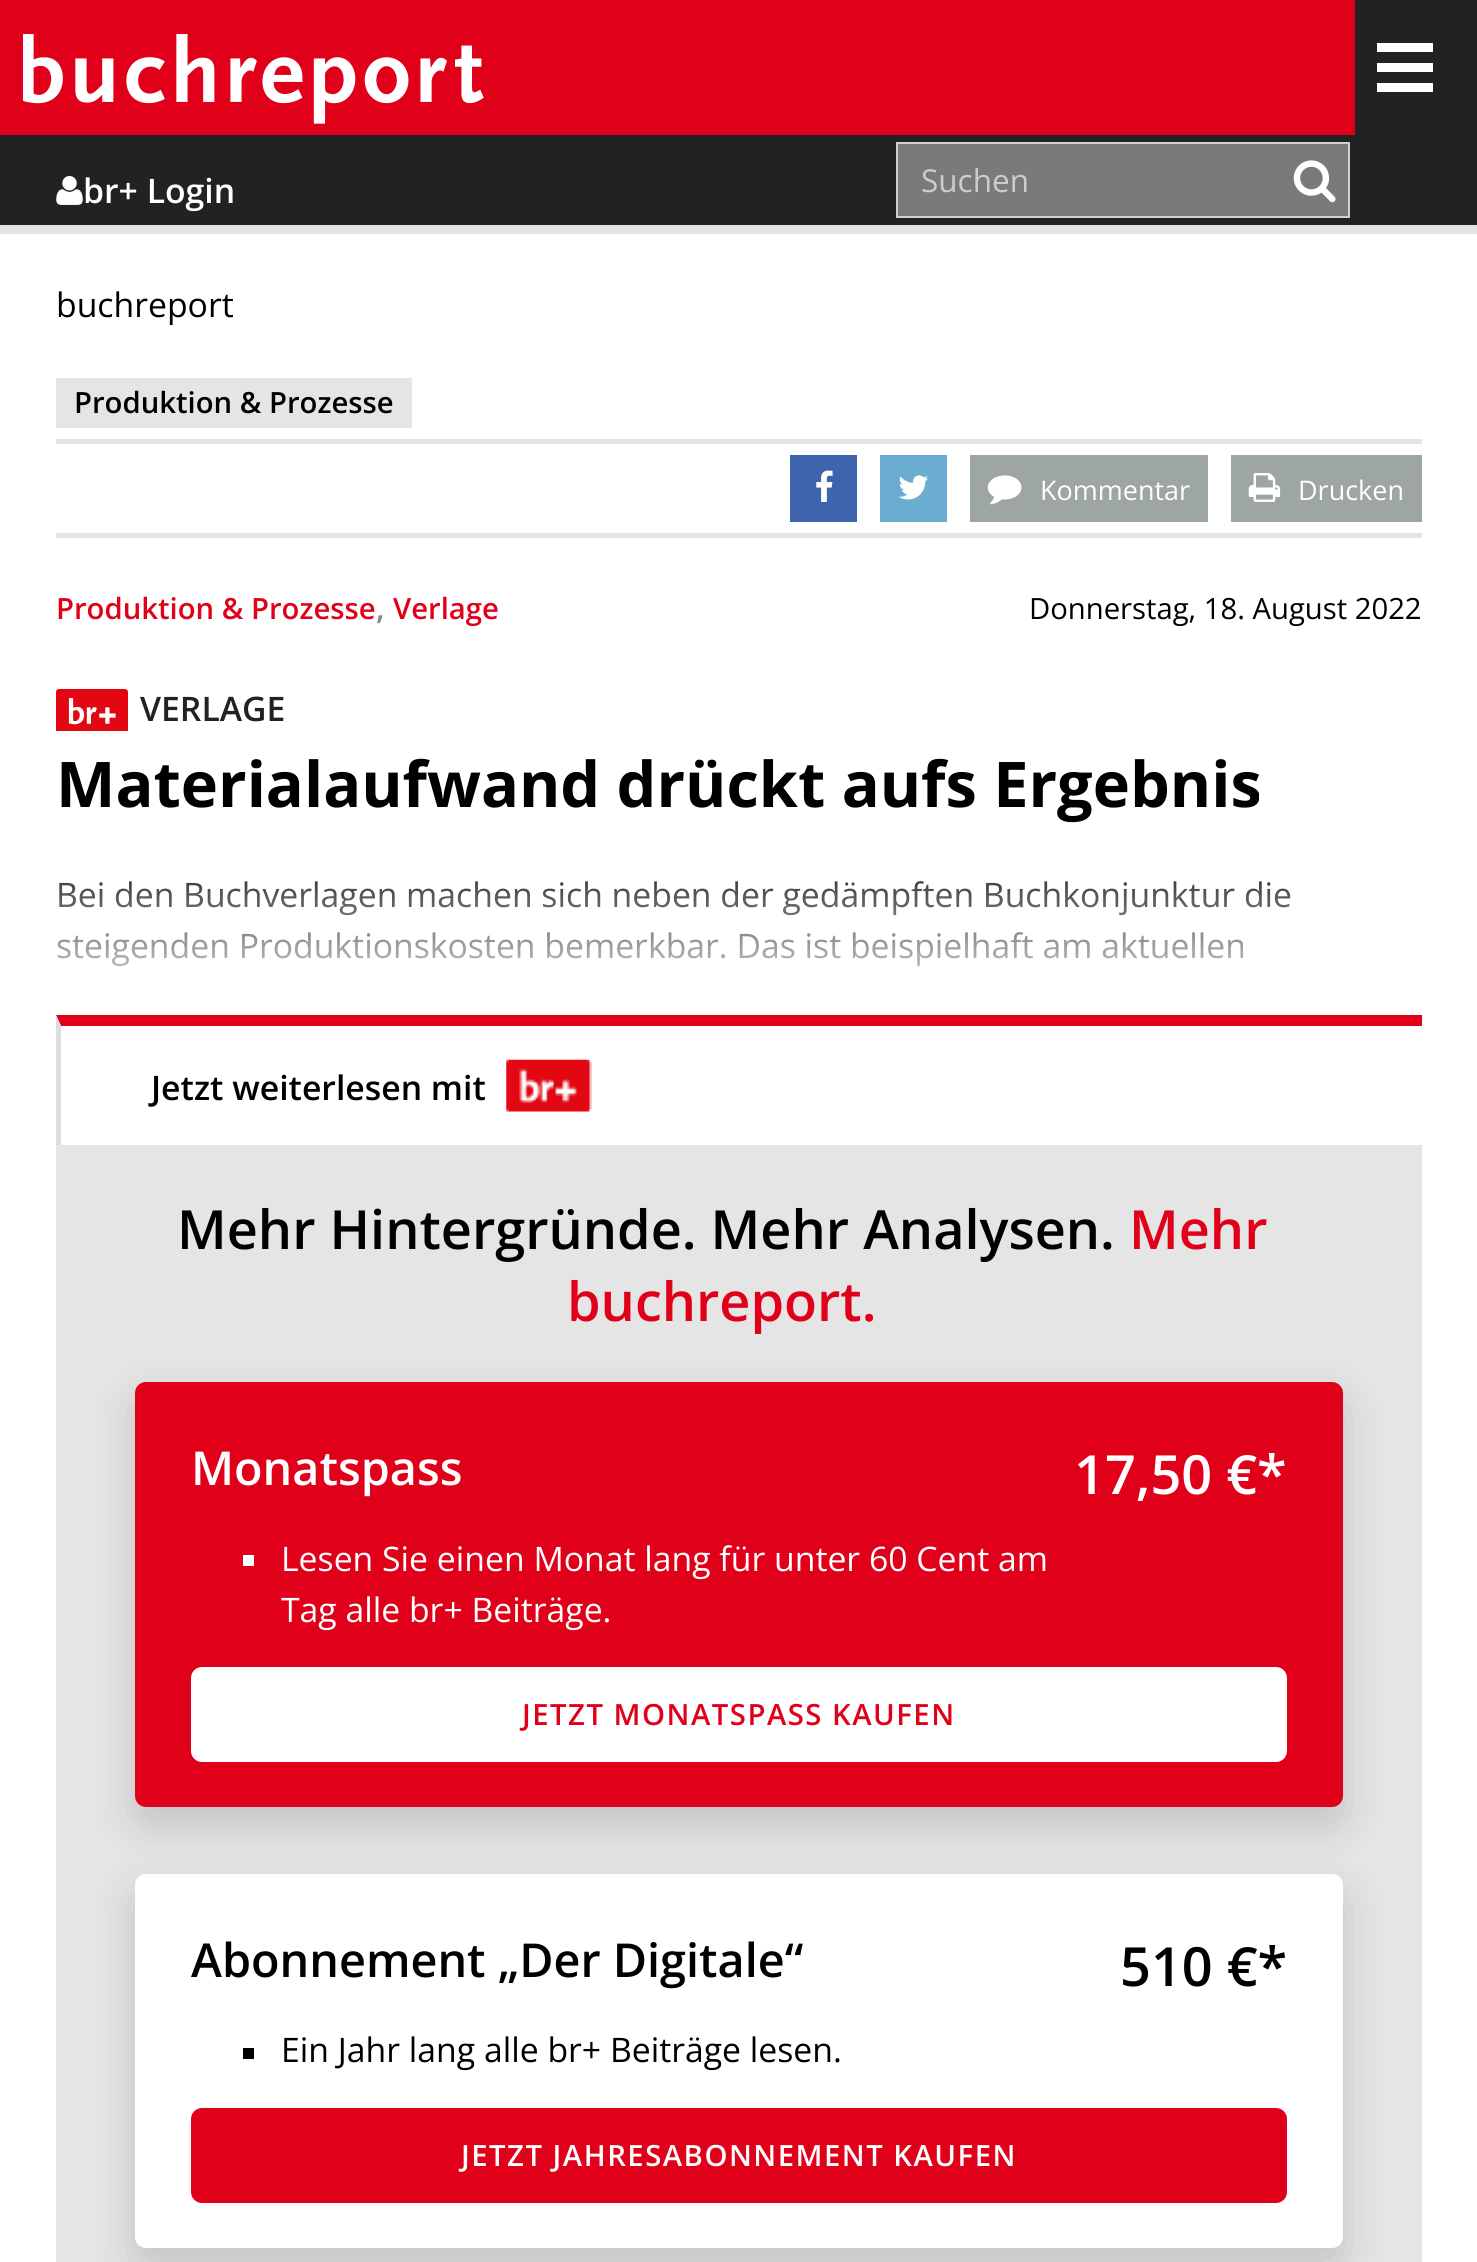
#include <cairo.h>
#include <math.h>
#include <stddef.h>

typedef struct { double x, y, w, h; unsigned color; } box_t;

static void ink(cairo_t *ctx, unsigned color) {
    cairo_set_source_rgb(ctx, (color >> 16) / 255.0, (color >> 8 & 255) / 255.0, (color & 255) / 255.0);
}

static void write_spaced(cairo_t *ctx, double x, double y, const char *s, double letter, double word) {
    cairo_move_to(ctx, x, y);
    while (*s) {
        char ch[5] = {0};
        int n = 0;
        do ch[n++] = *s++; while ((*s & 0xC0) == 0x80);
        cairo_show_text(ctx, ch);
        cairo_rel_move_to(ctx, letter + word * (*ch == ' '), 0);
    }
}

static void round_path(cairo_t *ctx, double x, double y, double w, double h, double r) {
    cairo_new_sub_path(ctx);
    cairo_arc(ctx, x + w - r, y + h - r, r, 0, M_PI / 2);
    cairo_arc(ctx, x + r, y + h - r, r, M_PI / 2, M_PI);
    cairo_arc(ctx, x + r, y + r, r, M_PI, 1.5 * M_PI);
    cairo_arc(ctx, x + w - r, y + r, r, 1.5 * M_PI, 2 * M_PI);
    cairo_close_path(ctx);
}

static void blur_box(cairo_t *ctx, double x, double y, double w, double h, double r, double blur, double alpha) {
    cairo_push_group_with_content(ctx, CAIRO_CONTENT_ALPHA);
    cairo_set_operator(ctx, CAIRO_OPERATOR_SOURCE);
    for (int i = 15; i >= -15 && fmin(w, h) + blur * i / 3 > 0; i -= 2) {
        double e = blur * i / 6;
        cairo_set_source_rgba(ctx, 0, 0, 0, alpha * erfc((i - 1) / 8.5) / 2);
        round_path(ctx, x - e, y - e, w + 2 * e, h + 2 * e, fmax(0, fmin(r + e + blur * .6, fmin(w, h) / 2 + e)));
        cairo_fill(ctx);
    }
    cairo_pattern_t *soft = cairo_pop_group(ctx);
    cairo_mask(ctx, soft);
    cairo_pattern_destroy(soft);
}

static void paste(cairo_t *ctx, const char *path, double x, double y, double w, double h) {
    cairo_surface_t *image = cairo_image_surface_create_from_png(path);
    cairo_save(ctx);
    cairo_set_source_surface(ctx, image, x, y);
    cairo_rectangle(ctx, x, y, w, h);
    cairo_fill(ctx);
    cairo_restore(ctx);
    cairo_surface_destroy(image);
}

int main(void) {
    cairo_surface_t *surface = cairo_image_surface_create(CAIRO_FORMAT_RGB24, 1477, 2262);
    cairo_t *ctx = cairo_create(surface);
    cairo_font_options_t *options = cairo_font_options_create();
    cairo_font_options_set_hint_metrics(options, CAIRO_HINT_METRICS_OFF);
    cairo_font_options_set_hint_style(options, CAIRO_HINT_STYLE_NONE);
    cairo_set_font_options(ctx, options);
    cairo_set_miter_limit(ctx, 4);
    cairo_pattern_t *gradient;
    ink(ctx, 0xFFFFFF);
    cairo_paint(ctx);
    ink(ctx, 0x222222);
    cairo_rectangle(ctx, 1355, 0, 122, 135);
    cairo_fill(ctx);
    ink(ctx, 0xE10019);
    cairo_rectangle(ctx, 0, 0, 1355, 135);
    cairo_fill(ctx);
    paste(ctx, "media/1.png", 23, 34, 461, 90);
    {
        static const box_t items[] = {
            {1377, 43, 56, 9, 0xFFFFFF},
            {1377, 63, 56, 9, 0xFFFFFF},
            {1377, 83, 56, 9, 0xFFFFFF},
            {0, 135, 1477, 90, 0x222222},
            {0, 225, 1477, 9, 0xE5E5E5},
        };
        for (size_t i = 0; i < sizeof items / sizeof *items; i++) {
            ink(ctx, items[i].color);
            cairo_rectangle(ctx, items[i].x, items[i].y, items[i].w, items[i].h);
            cairo_fill(ctx);
        }
    }
    paste(ctx, "media/2.png", 56, 176, 27, 29);
    cairo_select_font_face(ctx, "Open Sans SemiBold", CAIRO_FONT_SLANT_NORMAL, CAIRO_FONT_WEIGHT_NORMAL);
    cairo_set_font_size(ctx, 33.75);
    ink(ctx, 0xFFFFFF);
    cairo_move_to(ctx, 83, 203);
    cairo_show_text(ctx, "br+ Login");
    ink(ctx, 0x7A7A7A);
    cairo_rectangle(ctx, 897, 143, 452, 74);
    cairo_fill_preserve(ctx);
    ink(ctx, 0xCFCFCF);
    cairo_stroke(ctx);
    cairo_select_font_face(ctx, "Open Sans", CAIRO_FONT_SLANT_NORMAL, CAIRO_FONT_WEIGHT_NORMAL);
    cairo_set_font_size(ctx, 31.5);
    ink(ctx, 0xCCCCCC);
    cairo_move_to(ctx, 921, 192);
    cairo_show_text(ctx, "Suchen");
    paste(ctx, "media/3.png", 1293, 160, 43, 43);
    cairo_set_font_size(ctx, 33.75);
    ink(ctx, 0x000000);
    cairo_move_to(ctx, 56, 317);
    cairo_show_text(ctx, "buchreport");
    ink(ctx, 0xE5E5E5);
    cairo_rectangle(ctx, 56, 378, 356, 50);
    cairo_fill(ctx);
    cairo_select_font_face(ctx, "Open Sans SemiBold", CAIRO_FONT_SLANT_NORMAL, CAIRO_FONT_WEIGHT_NORMAL);
    cairo_set_font_size(ctx, 29.25);
    ink(ctx, 0x000000);
    cairo_move_to(ctx, 74, 413);
    cairo_show_text(ctx, "Produktion & Prozesse");
    {
        static const box_t items[] = {
            {56, 439, 1366, 5, 0xE5E5E5},
            {56, 533, 1366, 5, 0xE5E5E5},
            {790, 455, 67, 67, 0x3E64AD},
        };
        for (size_t i = 0; i < sizeof items / sizeof *items; i++) {
            ink(ctx, items[i].color);
            cairo_rectangle(ctx, items[i].x, items[i].y, items[i].w, items[i].h);
            cairo_fill(ctx);
        }
    }
    paste(ctx, "media/4.png", 816, 470, 17, 32);
    ink(ctx, 0x6AADD1);
    cairo_rectangle(ctx, 880, 455, 67, 67);
    cairo_fill(ctx);
    paste(ctx, "media/5.png", 898, 475, 31, 25);
    ink(ctx, 0x9DA6A1);
    cairo_rectangle(ctx, 970, 455, 238, 67);
    cairo_fill(ctx);
    paste(ctx, "media/6.png", 987, 475, 35, 30);
    cairo_select_font_face(ctx, "Open Sans", CAIRO_FONT_SLANT_NORMAL, CAIRO_FONT_WEIGHT_NORMAL);
    cairo_set_font_size(ctx, 27);
    ink(ctx, 0xFFFFFF);
    cairo_move_to(ctx, 1040, 500);
    cairo_show_text(ctx, "Kommentar");
    ink(ctx, 0x9DA6A1);
    cairo_rectangle(ctx, 1231, 455, 191, 67);
    cairo_fill(ctx);
    paste(ctx, "media/7.png", 1248, 473, 33, 29);
    ink(ctx, 0xFFFFFF);
    cairo_move_to(ctx, 1298, 500);
    cairo_show_text(ctx, "Drucken");
    cairo_select_font_face(ctx, "Open Sans SemiBold", CAIRO_FONT_SLANT_NORMAL, CAIRO_FONT_WEIGHT_NORMAL);
    cairo_set_font_size(ctx, 29.25);
    ink(ctx, 0xE10019);
    cairo_move_to(ctx, 56, 619);
    cairo_show_text(ctx, "Produktion & Prozesse");
    cairo_set_font_size(ctx, 31.5);
    ink(ctx, 0x878787);
    cairo_move_to(ctx, 376, 619);
    cairo_show_text(ctx, ",");
    cairo_set_font_size(ctx, 29.25);
    ink(ctx, 0xE10019);
    cairo_move_to(ctx, 393, 619);
    cairo_show_text(ctx, "Verlage");
    cairo_select_font_face(ctx, "Open Sans", CAIRO_FONT_SLANT_NORMAL, CAIRO_FONT_WEIGHT_NORMAL);
    ink(ctx, 0x000000);
    cairo_move_to(ctx, 1029, 619);
    cairo_show_text(ctx, "Donnerstag, 18. August 2022");
    paste(ctx, "media/8.png", 56, 689, 72, 42);
    cairo_select_font_face(ctx, "Open Sans SemiBold", CAIRO_FONT_SLANT_NORMAL, CAIRO_FONT_WEIGHT_NORMAL);
    cairo_set_font_size(ctx, 33.75);
    ink(ctx, 0x222222);
    cairo_move_to(ctx, 140, 721);
    cairo_show_text(ctx, "VERLAGE");
    cairo_select_font_face(ctx, "Open Sans", CAIRO_FONT_SLANT_NORMAL, CAIRO_FONT_WEIGHT_BOLD);
    cairo_set_font_size(ctx, 63);
    ink(ctx, 0x000000);
    cairo_move_to(ctx, 56, 807);
    cairo_show_text(ctx, "Materialaufwand drückt aufs Ergebnis");
    cairo_select_font_face(ctx, "Open Sans", CAIRO_FONT_SLANT_NORMAL, CAIRO_FONT_WEIGHT_NORMAL);
    cairo_set_font_size(ctx, 33.75);
    cairo_move_to(ctx, 56, 907);
    cairo_show_text(ctx, "Bei den Buchverlagen machen sich neben der gedämpften Buchkonjunktur die");
    cairo_move_to(ctx, 56, 958);
    cairo_show_text(ctx, "steigenden Produktionskosten bemerkbar. Das ist beispielhaft am aktuellen");
    gradient = cairo_pattern_create_linear(739, 1015, 739, 835);
    cairo_pattern_add_color_stop_rgba(gradient, 0, 1, 1, 1, 1);
    cairo_pattern_add_color_stop_rgba(gradient, 1, 1, 1, 1, 0);
    cairo_set_source(ctx, gradient);
    cairo_pattern_destroy(gradient);
    cairo_rectangle(ctx, 57, 881, 1234, 86);
    cairo_fill(ctx);
    cairo_save(ctx);
    cairo_rectangle(ctx, 56, 279, 1366, 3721);
    cairo_clip(ctx);
    ink(ctx, 0xE10019);
    cairo_new_path(ctx);
    cairo_move_to(ctx, 56, 1015);
    cairo_line_to(ctx, 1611, 1015);
    cairo_line_to(ctx, 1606, 1026);
    cairo_line_to(ctx, 61, 1026);
    cairo_close_path(ctx);
    cairo_fill(ctx);
    cairo_restore(ctx);
    ink(ctx, 0xDDDDDD);
    cairo_new_path(ctx);
    cairo_move_to(ctx, 56, 1145);
    cairo_line_to(ctx, 56, 1015);
    cairo_line_to(ctx, 61, 1026);
    cairo_line_to(ctx, 61, 1145);
    cairo_close_path(ctx);
    cairo_fill(ctx);
    cairo_select_font_face(ctx, "Open Sans SemiBold", CAIRO_FONT_SLANT_NORMAL, CAIRO_FONT_WEIGHT_NORMAL);
    ink(ctx, 0x000000);
    cairo_move_to(ctx, 151, 1100);
    cairo_show_text(ctx, "Jetzt weiterlesen mit");
    paste(ctx, "media/9.png", 506, 1059, 86, 53);
    ink(ctx, 0xE5E5E5);
    cairo_rectangle(ctx, 56, 1145, 1366, 1117);
    cairo_fill(ctx);
    cairo_set_font_size(ctx, 54);
    ink(ctx, 0x000000);
    cairo_move_to(ctx, 177, 1249);
    cairo_show_text(ctx, "Mehr Hintergründe. Mehr Analysen.");
    ink(ctx, 0xE10019);
    cairo_move_to(ctx, 1129, 1249);
    cairo_show_text(ctx, "Mehr");
    ink(ctx, 0x000000);
    blur_box(ctx, 135, 1400, 1208, 425, 11, 22.5, 0.15);
    ink(ctx, 0xE10019);
    cairo_move_to(ctx, 567, 1321);
    cairo_show_text(ctx, "buchreport.");
    round_path(ctx, 135, 1382, 1208, 425, 11);
    cairo_fill(ctx);
    cairo_set_font_size(ctx, 46.75);
    ink(ctx, 0xFFFFFF);
    cairo_move_to(ctx, 191, 1485);
    cairo_show_text(ctx, "Monatspass");
    cairo_set_font_size(ctx, 54);
    cairo_move_to(ctx, 1074, 1494);
    cairo_show_text(ctx, "17,50 €*");
    cairo_rectangle(ctx, 243, 1555, 11, 11);
    cairo_fill(ctx);
    cairo_select_font_face(ctx, "Open Sans", CAIRO_FONT_SLANT_NORMAL, CAIRO_FONT_WEIGHT_NORMAL);
    cairo_set_font_size(ctx, 33.75);
    cairo_move_to(ctx, 281, 1571);
    cairo_show_text(ctx, "Lesen Sie einen Monat lang für unter 60 Cent am");
    cairo_move_to(ctx, 281, 1622);
    cairo_show_text(ctx, "Tag alle br+ Beiträge.");
    round_path(ctx, 191, 1667, 1096, 95, 11);
    cairo_fill(ctx);
    cairo_select_font_face(ctx, "Open Sans SemiBold", CAIRO_FONT_SLANT_NORMAL, CAIRO_FONT_WEIGHT_NORMAL);
    cairo_set_font_size(ctx, 29.25);
    ink(ctx, 0xE10019);
    write_spaced(ctx, 522, 1725, "JETZT MONATSPASS KAUFEN", 1.5, 0);
    ink(ctx, 0x000000);
    blur_box(ctx, 135, 1892, 1208, 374, 11, 22.5, 0.15);
    ink(ctx, 0xFFFFFF);
    round_path(ctx, 135, 1874, 1208, 374, 11);
    cairo_fill(ctx);
    cairo_set_font_size(ctx, 46.75);
    ink(ctx, 0x000000);
    cairo_move_to(ctx, 191, 1977);
    cairo_show_text(ctx, "Abonnement „Der Digitale“");
    cairo_set_font_size(ctx, 54);
    cairo_move_to(ctx, 1120, 1986);
    cairo_show_text(ctx, "510 €*");
    cairo_rectangle(ctx, 243, 2048, 11, 11);
    cairo_fill(ctx);
    cairo_select_font_face(ctx, "Open Sans", CAIRO_FONT_SLANT_NORMAL, CAIRO_FONT_WEIGHT_NORMAL);
    cairo_set_font_size(ctx, 33.75);
    cairo_move_to(ctx, 281, 2062);
    cairo_show_text(ctx, "Ein Jahr lang alle br+ Beiträge lesen.");
    ink(ctx, 0xE10019);
    round_path(ctx, 191, 2108, 1096, 95, 11);
    cairo_fill(ctx);
    cairo_select_font_face(ctx, "Open Sans SemiBold", CAIRO_FONT_SLANT_NORMAL, CAIRO_FONT_WEIGHT_NORMAL);
    cairo_set_font_size(ctx, 29.25);
    ink(ctx, 0xFFFFFF);
    write_spaced(ctx, 461, 2166, "JETZT JAHRESABONNEMENT KAUFEN", 1.5, 0);
    cairo_surface_write_to_png(surface, "image.png");
    cairo_font_options_destroy(options);
    cairo_destroy(ctx);
    cairo_surface_destroy(surface);
    return 0;
}
